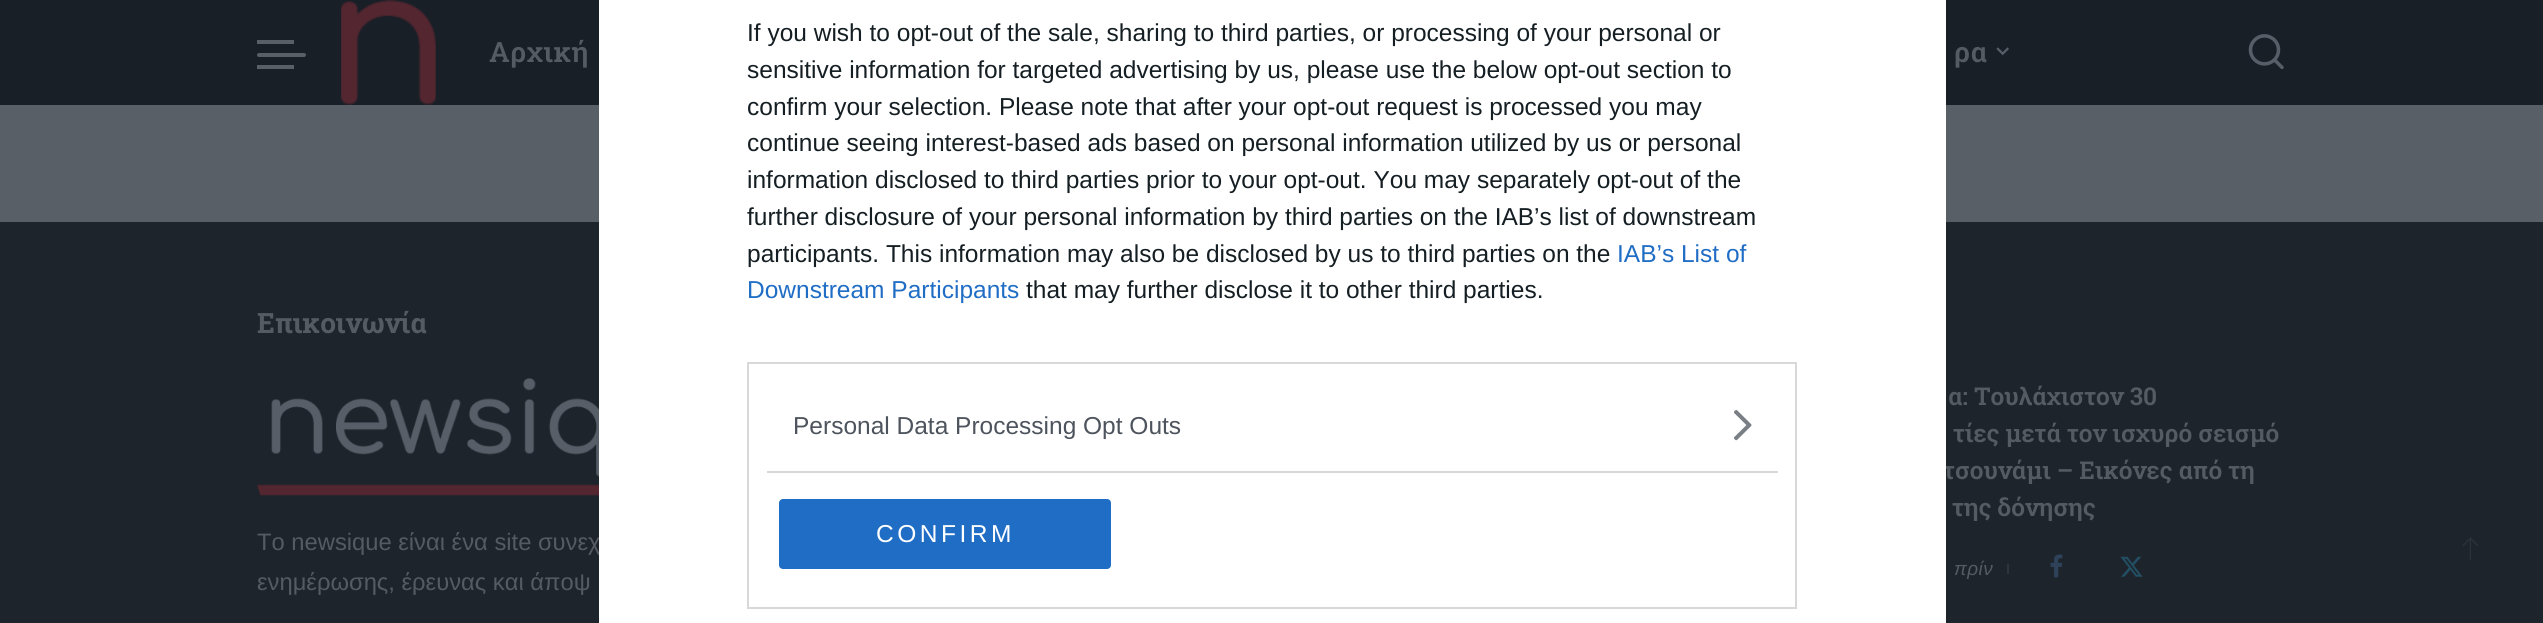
#include <cairo.h>
#include <math.h>
#include <stddef.h>

typedef struct { double x, y; const char *s; } line_t;

static void ink(cairo_t *ctx, unsigned color) {
    cairo_set_source_rgb(ctx, (color >> 16) / 255.0, (color >> 8 & 255) / 255.0, (color & 255) / 255.0);
}

static void write_spaced(cairo_t *ctx, double x, double y, const char *s, double letter, double word) {
    cairo_move_to(ctx, x, y);
    while (*s) {
        char ch[5] = {0};
        int n = 0;
        do ch[n++] = *s++; while ((*s & 0xC0) == 0x80);
        cairo_show_text(ctx, ch);
        cairo_rel_move_to(ctx, letter + word * (*ch == ' '), 0);
    }
}

static void round_path(cairo_t *ctx, double x, double y, double w, double h, double r) {
    cairo_new_sub_path(ctx);
    cairo_arc(ctx, x + w - r, y + h - r, r, 0, M_PI / 2);
    cairo_arc(ctx, x + r, y + h - r, r, M_PI / 2, M_PI);
    cairo_arc(ctx, x + r, y + r, r, M_PI, 1.5 * M_PI);
    cairo_arc(ctx, x + w - r, y + r, r, 1.5 * M_PI, 2 * M_PI);
    cairo_close_path(ctx);
}

static void paste(cairo_t *ctx, const char *path, double x, double y, double w, double h) {
    cairo_surface_t *image = cairo_image_surface_create_from_png(path);
    cairo_save(ctx);
    cairo_set_source_surface(ctx, image, x, y);
    cairo_rectangle(ctx, x, y, w, h);
    cairo_fill(ctx);
    cairo_restore(ctx);
    cairo_surface_destroy(image);
}

int main(void) {
    cairo_surface_t *surface = cairo_image_surface_create(CAIRO_FORMAT_RGB24, 2543, 623);
    cairo_t *ctx = cairo_create(surface);
    cairo_font_options_t *options = cairo_font_options_create();
    cairo_font_options_set_hint_metrics(options, CAIRO_HINT_METRICS_OFF);
    cairo_font_options_set_hint_style(options, CAIRO_HINT_STYLE_NONE);
    cairo_set_font_options(ctx, options);
    cairo_set_miter_limit(ctx, 4);
    ink(ctx, 0x595F67);
    cairo_paint(ctx);
    ink(ctx, 0x191F27);
    cairo_rectangle(ctx, 0, 0, 2543, 105);
    cairo_fill(ctx);
    ink(ctx, 0x1E242C);
    cairo_rectangle(ctx, 0, 222, 2543, 401);
    cairo_fill(ctx);
    cairo_select_font_face(ctx, "Liberation Sans", CAIRO_FONT_SLANT_NORMAL, CAIRO_FONT_WEIGHT_NORMAL);
    cairo_set_font_size(ctx, 23.75);
    ink(ctx, 0x555B63);
    cairo_move_to(ctx, 257, 550);
    cairo_show_text(ctx, "Το newsique είναι ένα site συνεχ");
    cairo_select_font_face(ctx, "Roboto Slab SemiBold", CAIRO_FONT_SLANT_NORMAL, CAIRO_FONT_WEIGHT_NORMAL);
    cairo_set_font_size(ctx, 24.5);
    cairo_move_to(ctx, 1943, 479);
    cairo_show_text(ctx, "τσουνάμι – Εικόνες από τη");
    ink(ctx, 0xFFFFFF);
    cairo_rectangle(ctx, 599, 0, 1347, 623);
    cairo_fill(ctx);
    cairo_select_font_face(ctx, "Liberation Sans", CAIRO_FONT_SLANT_NORMAL, CAIRO_FONT_WEIGHT_NORMAL);
    ink(ctx, 0x141E23);
    {
        static const line_t items[] = {
            {747, 41, "If you wish to opt-out of the sale, sharing to third parties, or processing of your personal or"},
            {747, 78, "sensitive information for targeted advertising by us, please use the below opt-out section to"},
            {747, 115, "confirm your selection. Please note that after your opt-out request is processed you may"},
            {747, 151, "continue seeing interest-based ads based on personal information utilized by us or personal"},
            {747, 188, "information disclosed to third parties prior to your opt-out. You may separately opt-out of the"},
            {747, 225, "further disclosure of your personal information by third parties on the IAB’s list of downstream"},
            {747, 262, "participants. This information may also be disclosed by us to third parties on the"},
        };
        for (size_t i = 0; i < sizeof items / sizeof *items; i++) {
            cairo_move_to(ctx, items[i].x, items[i].y);
            cairo_show_text(ctx, items[i].s);
        }
    }
    ink(ctx, 0x206DC5);
    cairo_move_to(ctx, 1617, 262);
    cairo_show_text(ctx, "IAB’s List of");
    cairo_move_to(ctx, 747, 298);
    cairo_show_text(ctx, "Downstream Participants");
    ink(ctx, 0x141E23);
    cairo_move_to(ctx, 1026, 298);
    cairo_show_text(ctx, "that may further disclose it to other third parties.");
    cairo_rectangle(ctx, 748, 363, 1048, 245);
    ink(ctx, 0xD8D8D8);
    cairo_stroke(ctx);
    cairo_rectangle(ctx, 767, 471, 1011, 2);
    cairo_fill(ctx);
    ink(ctx, 0x4D545D);
    cairo_move_to(ctx, 793, 434);
    cairo_show_text(ctx, "Personal Data Processing Opt Outs");
    paste(ctx, "media/1.png", 1734, 410, 18, 31);
    ink(ctx, 0x206DC5);
    round_path(ctx, 779, 499, 332, 70, 4);
    cairo_fill(ctx);
    ink(ctx, 0xFFFFFF);
    write_spaced(ctx, 876, 542, "CONFIRM", 3.5, 0);
    ink(ctx, 0x595F67);
    round_path(ctx, 257, 53, 49, 4, 2);
    cairo_fill(ctx);
    cairo_rectangle(ctx, 257, 40, 37, 4);
    cairo_fill(ctx);
    cairo_rectangle(ctx, 257, 65, 37, 4);
    cairo_fill(ctx);
    paste(ctx, "media/2.png", 341, 0, 95, 105);
    cairo_select_font_face(ctx, "Roboto Slab SemiBold", CAIRO_FONT_SLANT_NORMAL, CAIRO_FONT_WEIGHT_NORMAL);
    cairo_set_font_size(ctx, 28);
    ink(ctx, 0x555B63);
    write_spaced(ctx, 489, 62, "Αρχική", 0.5, 0);
    write_spaced(ctx, 1954, 62, "ρα", 0.5, 0);
    paste(ctx, "media/3.png", 1996, 47, 13, 9);
    paste(ctx, "media/4.png", 2248, 34, 36, 36);
    cairo_select_font_face(ctx, "Roboto Slab", CAIRO_FONT_SLANT_NORMAL, CAIRO_FONT_WEIGHT_BOLD);
    cairo_move_to(ctx, 257, 333);
    cairo_show_text(ctx, "Επικοινωνία");
    paste(ctx, "media/5.png", 257, 378, 342, 118);
    cairo_select_font_face(ctx, "Liberation Sans", CAIRO_FONT_SLANT_NORMAL, CAIRO_FONT_WEIGHT_NORMAL);
    cairo_set_font_size(ctx, 23.75);
    cairo_move_to(ctx, 257, 590);
    cairo_show_text(ctx, "ενημέρωσης, έρευνας και άποψ");
    cairo_select_font_face(ctx, "Roboto Slab SemiBold", CAIRO_FONT_SLANT_NORMAL, CAIRO_FONT_WEIGHT_NORMAL);
    cairo_set_font_size(ctx, 24.5);
    {
        static const line_t items[] = {
            {1948, 405, "α: Τουλάχιστον 30"},
            {1953, 442, "τίες μετά τον ισχυρό σεισμό"},
            {1952, 516, "της δόνησης"},
        };
        for (size_t i = 0; i < sizeof items / sizeof *items; i++) {
            cairo_move_to(ctx, items[i].x, items[i].y);
            cairo_show_text(ctx, items[i].s);
        }
    }
    cairo_select_font_face(ctx, "Liberation Sans", CAIRO_FONT_SLANT_ITALIC, CAIRO_FONT_WEIGHT_NORMAL);
    cairo_set_font_size(ctx, 19);
    write_spaced(ctx, 1954, 575, "πρίν", 0.5, 0);
    ink(ctx, 0x2E343D);
    cairo_rectangle(ctx, 2007, 564, 2, 10);
    cairo_fill(ctx);
    paste(ctx, "media/6.png", 2050, 554, 13, 24);
    paste(ctx, "media/7.png", 2120, 556, 23, 21);
    paste(ctx, "media/8.png", 2462, 537, 17, 24);
    cairo_surface_write_to_png(surface, "image.png");
    cairo_font_options_destroy(options);
    cairo_destroy(ctx);
    cairo_surface_destroy(surface);
    return 0;
}
